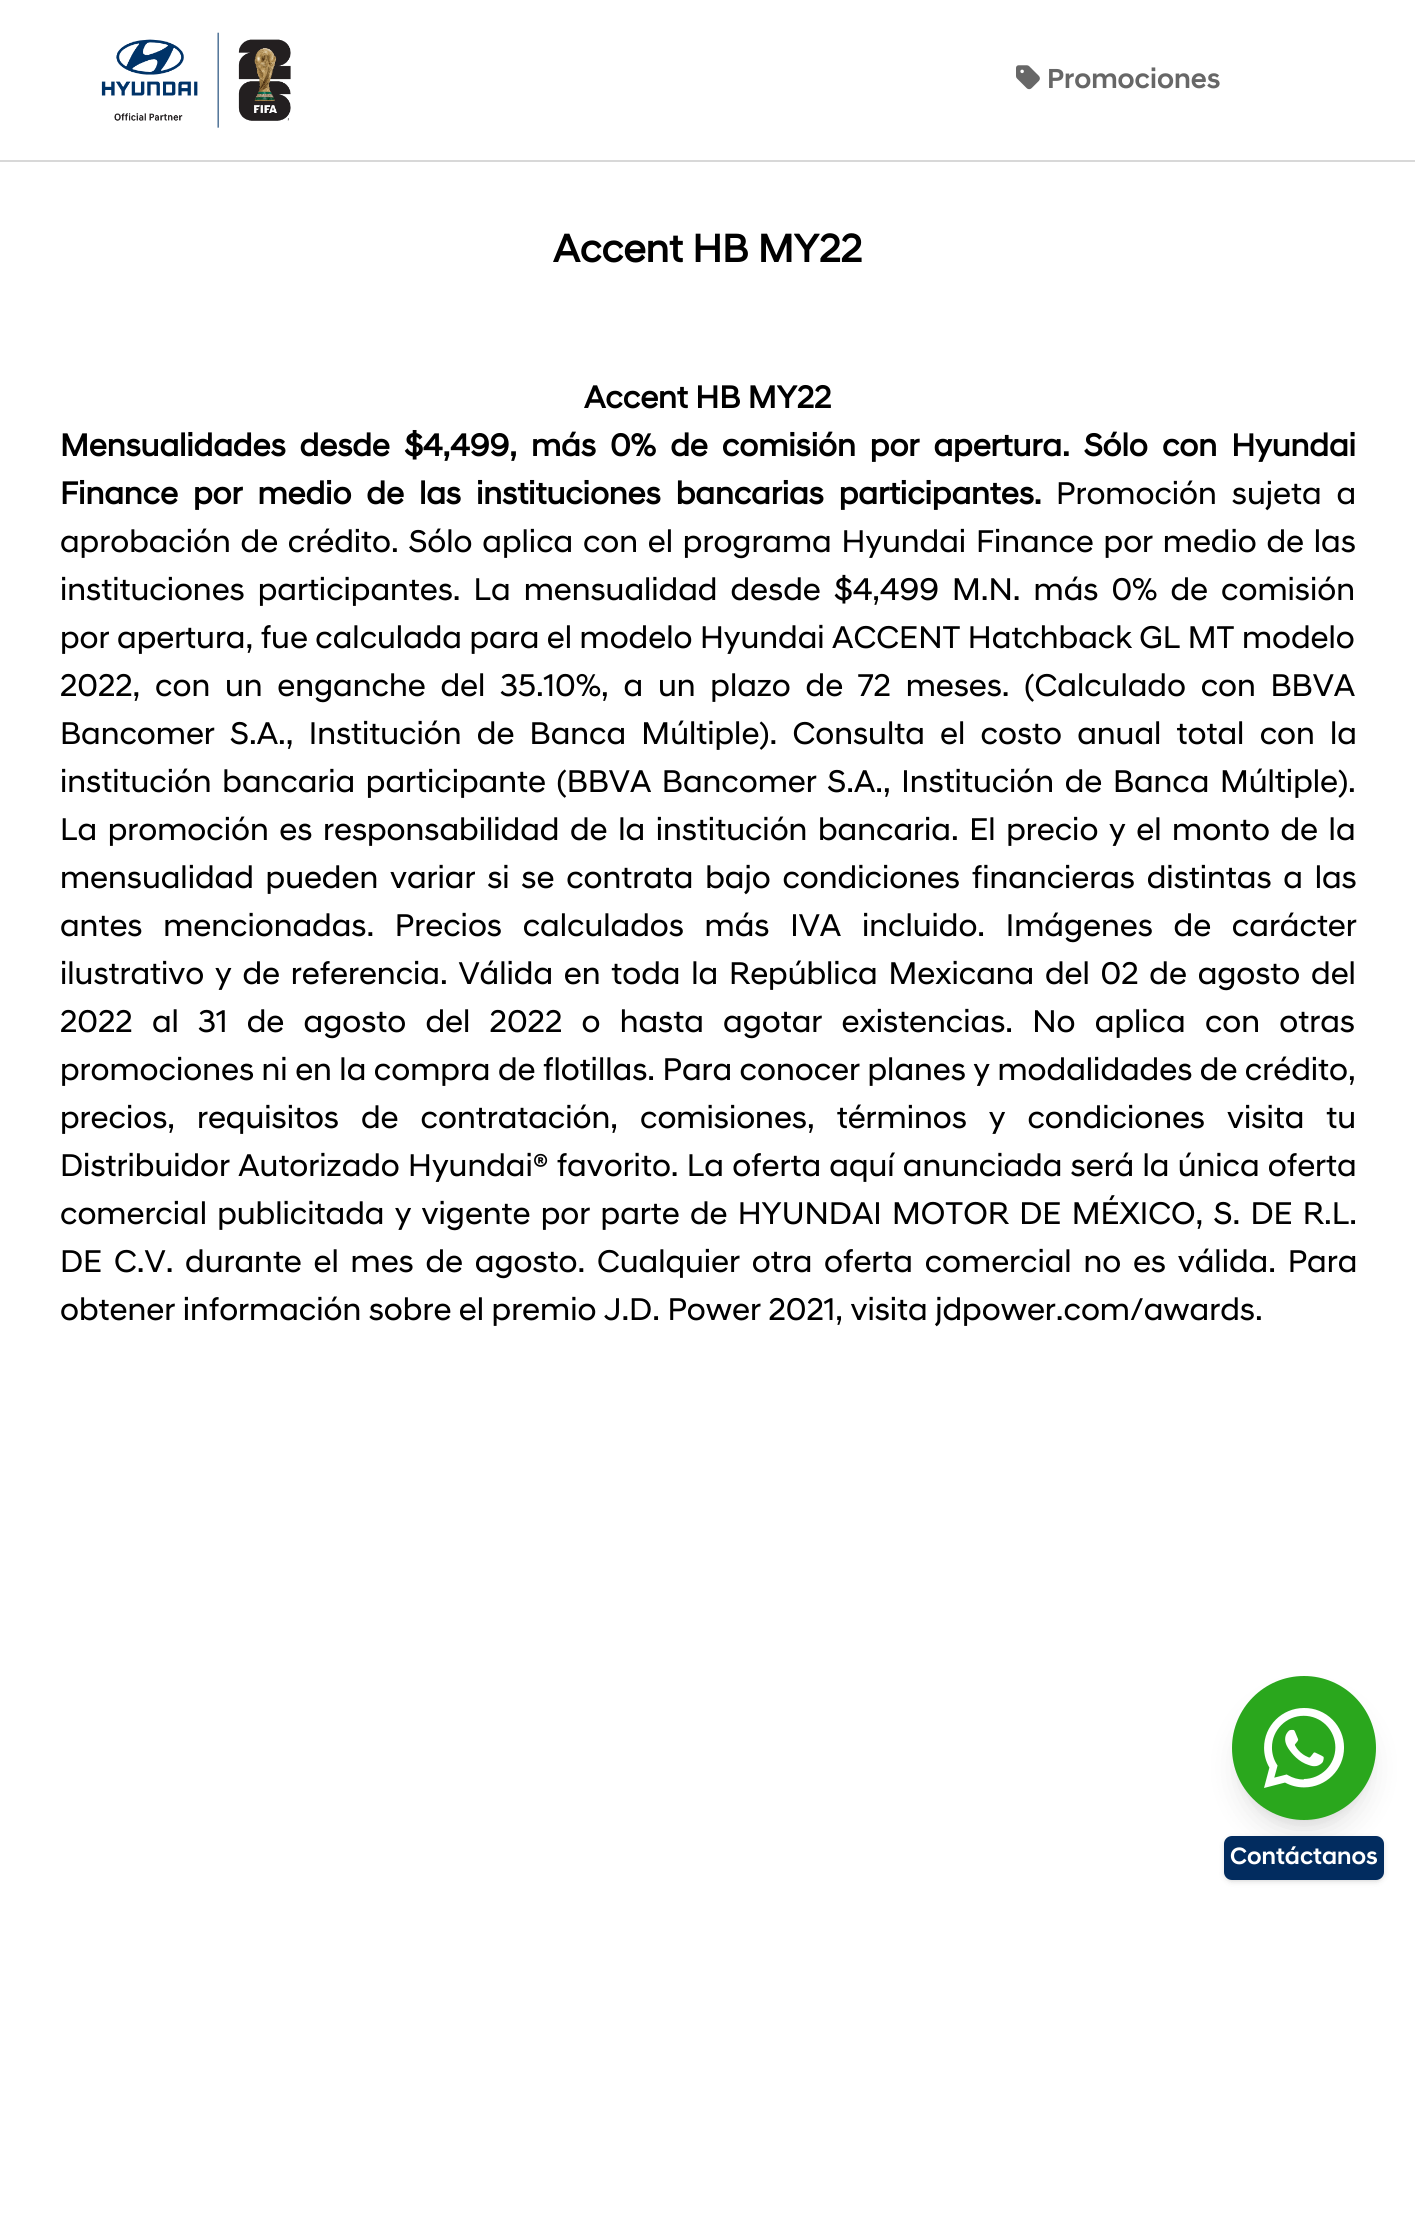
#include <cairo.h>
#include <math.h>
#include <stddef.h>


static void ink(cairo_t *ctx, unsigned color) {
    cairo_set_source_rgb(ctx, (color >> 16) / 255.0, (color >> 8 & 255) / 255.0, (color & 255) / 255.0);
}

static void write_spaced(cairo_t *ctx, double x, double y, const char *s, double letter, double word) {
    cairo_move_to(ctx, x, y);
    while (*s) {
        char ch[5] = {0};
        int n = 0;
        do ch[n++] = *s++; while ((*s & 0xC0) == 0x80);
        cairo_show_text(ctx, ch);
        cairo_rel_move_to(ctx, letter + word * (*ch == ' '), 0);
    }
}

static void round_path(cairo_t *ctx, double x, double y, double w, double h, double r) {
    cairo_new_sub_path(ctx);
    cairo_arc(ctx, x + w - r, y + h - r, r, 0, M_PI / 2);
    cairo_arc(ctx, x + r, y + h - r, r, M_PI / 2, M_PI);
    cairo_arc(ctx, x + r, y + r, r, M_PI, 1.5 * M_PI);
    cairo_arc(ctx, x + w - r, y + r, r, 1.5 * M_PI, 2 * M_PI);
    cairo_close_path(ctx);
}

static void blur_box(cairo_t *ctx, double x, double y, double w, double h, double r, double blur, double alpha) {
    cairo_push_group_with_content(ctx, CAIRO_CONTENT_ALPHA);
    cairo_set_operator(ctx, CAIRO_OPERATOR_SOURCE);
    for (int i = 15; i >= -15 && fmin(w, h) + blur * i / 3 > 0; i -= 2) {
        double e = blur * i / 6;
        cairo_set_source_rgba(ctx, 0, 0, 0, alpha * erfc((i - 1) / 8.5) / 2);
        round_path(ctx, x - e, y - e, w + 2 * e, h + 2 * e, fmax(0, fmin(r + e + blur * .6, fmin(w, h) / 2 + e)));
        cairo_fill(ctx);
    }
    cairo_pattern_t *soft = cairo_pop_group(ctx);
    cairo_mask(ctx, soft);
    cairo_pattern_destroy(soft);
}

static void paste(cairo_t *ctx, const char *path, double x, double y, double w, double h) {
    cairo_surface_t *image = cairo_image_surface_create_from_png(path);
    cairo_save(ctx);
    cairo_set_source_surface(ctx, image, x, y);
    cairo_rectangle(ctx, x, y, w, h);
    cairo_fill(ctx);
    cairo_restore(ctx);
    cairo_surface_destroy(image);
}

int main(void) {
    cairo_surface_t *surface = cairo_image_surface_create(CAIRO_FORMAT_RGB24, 1415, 2232);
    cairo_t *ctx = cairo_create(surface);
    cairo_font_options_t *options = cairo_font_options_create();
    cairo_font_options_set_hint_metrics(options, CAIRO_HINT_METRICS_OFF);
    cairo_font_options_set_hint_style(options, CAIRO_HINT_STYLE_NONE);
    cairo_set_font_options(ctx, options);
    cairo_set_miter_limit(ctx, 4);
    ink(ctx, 0xFFFFFF);
    cairo_paint(ctx);
    ink(ctx, 0xD8D8D8);
    cairo_rectangle(ctx, 0, 160, 1415, 2);
    cairo_fill(ctx);
    paste(ctx, "media/1.png", 101, 32, 190, 96);
    paste(ctx, "media/2.png", 1016, 65, 24, 25);
    cairo_select_font_face(ctx, "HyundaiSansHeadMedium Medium", CAIRO_FONT_SLANT_NORMAL, CAIRO_FONT_WEIGHT_NORMAL);
    cairo_set_font_size(ctx, 28);
    ink(ctx, 0x676767);
    cairo_move_to(ctx, 1047, 88);
    cairo_show_text(ctx, "Promociones");
    cairo_select_font_face(ctx, "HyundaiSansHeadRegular", CAIRO_FONT_SLANT_NORMAL, CAIRO_FONT_WEIGHT_BOLD);
    cairo_set_font_size(ctx, 40);
    ink(ctx, 0x000000);
    cairo_move_to(ctx, 553, 262);
    cairo_show_text(ctx, "Accent HB MY22");
    cairo_set_font_size(ctx, 32);
    cairo_move_to(ctx, 584, 408);
    cairo_show_text(ctx, "Accent HB MY22");
    write_spaced(ctx, 60, 456, "Mensualidades desde $4,499, más 0% de comisión por apertura. Sólo con Hyundai", 0, 6.6);
    write_spaced(ctx, 60, 504, "Finance por medio de las instituciones bancarias participantes.", 0, 7.5);
    cairo_select_font_face(ctx, "HyundaiSansHeadRegular", CAIRO_FONT_SLANT_NORMAL, CAIRO_FONT_WEIGHT_NORMAL);
    write_spaced(ctx, 1056, 504, "Promoción sujeta a", 0, 7.5);
    write_spaced(ctx, 60, 552, "aprobación de crédito. Sólo aplica con el programa Hyundai Finance por medio de las", 0, 2.25);
    write_spaced(ctx, 60, 600, "instituciones participantes. La mensualidad desde $4,499 M.N. más 0% de comisión", 0, 5.5);
    cairo_move_to(ctx, 60, 648);
    cairo_show_text(ctx, "por apertura, fue calculada para el modelo Hyundai ACCENT Hatchback GL MT modelo");
    write_spaced(ctx, 60, 696, "2022, con un enganche del 35.10%, a un plazo de 72 meses. (Calculado con BBVA", 0, 7.25);
    write_spaced(ctx, 60, 744, "Bancomer S.A., Institución de Banca Múltiple). Consulta el costo anual total con la", 0, 7.75);
    write_spaced(ctx, 60, 792, "institución bancaria participante (BBVA Bancomer S.A., Institución de Banca Múltiple).", 0, 3.1);
    write_spaced(ctx, 60, 840, "La promoción es responsabilidad de la institución bancaria. El precio y el monto de la", 0, 3.1);
    write_spaced(ctx, 60, 888, "mensualidad pueden variar si se contrata bajo condiciones financieras distintas a las", 0, 4.25);
    write_spaced(ctx, 60, 936, "antes mencionadas. Precios calculados más IVA incluido. Imágenes de carácter", 0, 13.25);
    write_spaced(ctx, 60, 984, "ilustrativo y de referencia. Válida en toda la República Mexicana del 02 de agosto del", 0, 3.25);
    write_spaced(ctx, 60, 1032, "2022 al 31 de agosto del 2022 o hasta agotar existencias. No aplica con otras", 0, 11.75);
    cairo_move_to(ctx, 60, 1080);
    cairo_show_text(ctx, "promociones ni en la compra de flotillas. Para conocer planes y modalidades de crédito,");
    write_spaced(ctx, 60, 1128, "precios, requisitos de contratación, comisiones, términos y condiciones visita tu", 0, 14.5);
    write_spaced(ctx, 60, 1176, "Distribuidor Autorizado Hyundai® favorito. La oferta aquí anunciada será la única oferta", 0, 0.75);
    write_spaced(ctx, 60, 1224, "comercial publicitada y vigente por parte de HYUNDAI MOTOR DE MÉXICO, S. DE R.L.", 0, 2.75);
    write_spaced(ctx, 60, 1272, "DE C.V. durante el mes de agosto. Cualquier otra oferta comercial no es válida. Para", 0, 4.25);
    cairo_move_to(ctx, 60, 1320);
    cairo_show_text(ctx, "obtener información sobre el premio J.D. Power 2021, visita jdpower.com/awards.");
    ink(ctx, 0x000000);
    blur_box(ctx, 1240, 1692, 128, 128, 64, 6, 0.1);
    blur_box(ctx, 1238, 1702, 132, 132, 66, 15, 0.1);
    ink(ctx, 0x2AA71D);
    cairo_arc(ctx, 1304, 1748, 72, 0, 2 * M_PI);
    cairo_fill(ctx);
    paste(ctx, "media/3.png", 1264, 1708, 80, 80);
    ink(ctx, 0x000000);
    blur_box(ctx, 1226, 1840, 156, 40, 6, 2, 0.1);
    blur_box(ctx, 1224, 1838, 160, 44, 8, 3, 0.1);
    ink(ctx, 0x022C5F);
    round_path(ctx, 1224, 1836, 160, 44, 8);
    cairo_fill(ctx);
    cairo_select_font_face(ctx, "HyundaiSansHeadMedium Medium", CAIRO_FONT_SLANT_NORMAL, CAIRO_FONT_WEIGHT_NORMAL);
    cairo_set_font_size(ctx, 24);
    ink(ctx, 0xFFFFFF);
    cairo_move_to(ctx, 1230, 1864);
    cairo_show_text(ctx, "Contáctanos");
    cairo_surface_write_to_png(surface, "image.png");
    cairo_font_options_destroy(options);
    cairo_destroy(ctx);
    cairo_surface_destroy(surface);
    return 0;
}
